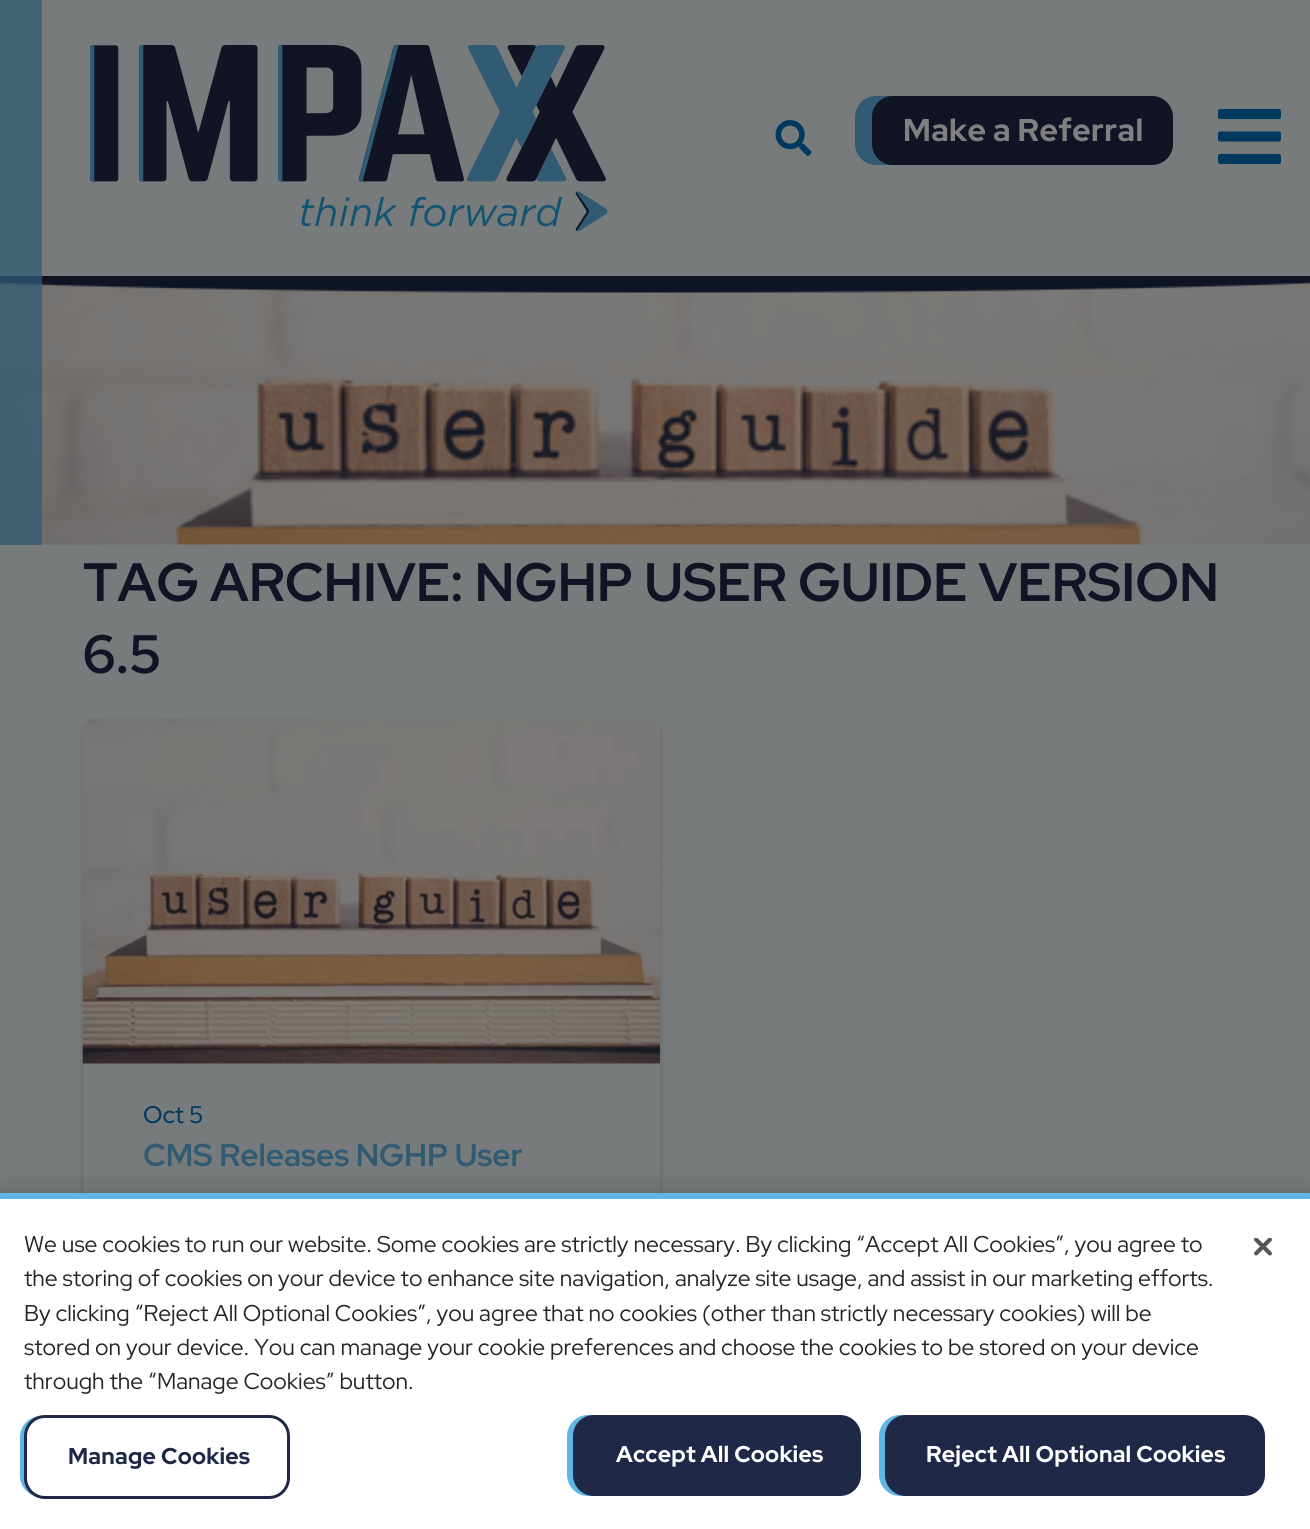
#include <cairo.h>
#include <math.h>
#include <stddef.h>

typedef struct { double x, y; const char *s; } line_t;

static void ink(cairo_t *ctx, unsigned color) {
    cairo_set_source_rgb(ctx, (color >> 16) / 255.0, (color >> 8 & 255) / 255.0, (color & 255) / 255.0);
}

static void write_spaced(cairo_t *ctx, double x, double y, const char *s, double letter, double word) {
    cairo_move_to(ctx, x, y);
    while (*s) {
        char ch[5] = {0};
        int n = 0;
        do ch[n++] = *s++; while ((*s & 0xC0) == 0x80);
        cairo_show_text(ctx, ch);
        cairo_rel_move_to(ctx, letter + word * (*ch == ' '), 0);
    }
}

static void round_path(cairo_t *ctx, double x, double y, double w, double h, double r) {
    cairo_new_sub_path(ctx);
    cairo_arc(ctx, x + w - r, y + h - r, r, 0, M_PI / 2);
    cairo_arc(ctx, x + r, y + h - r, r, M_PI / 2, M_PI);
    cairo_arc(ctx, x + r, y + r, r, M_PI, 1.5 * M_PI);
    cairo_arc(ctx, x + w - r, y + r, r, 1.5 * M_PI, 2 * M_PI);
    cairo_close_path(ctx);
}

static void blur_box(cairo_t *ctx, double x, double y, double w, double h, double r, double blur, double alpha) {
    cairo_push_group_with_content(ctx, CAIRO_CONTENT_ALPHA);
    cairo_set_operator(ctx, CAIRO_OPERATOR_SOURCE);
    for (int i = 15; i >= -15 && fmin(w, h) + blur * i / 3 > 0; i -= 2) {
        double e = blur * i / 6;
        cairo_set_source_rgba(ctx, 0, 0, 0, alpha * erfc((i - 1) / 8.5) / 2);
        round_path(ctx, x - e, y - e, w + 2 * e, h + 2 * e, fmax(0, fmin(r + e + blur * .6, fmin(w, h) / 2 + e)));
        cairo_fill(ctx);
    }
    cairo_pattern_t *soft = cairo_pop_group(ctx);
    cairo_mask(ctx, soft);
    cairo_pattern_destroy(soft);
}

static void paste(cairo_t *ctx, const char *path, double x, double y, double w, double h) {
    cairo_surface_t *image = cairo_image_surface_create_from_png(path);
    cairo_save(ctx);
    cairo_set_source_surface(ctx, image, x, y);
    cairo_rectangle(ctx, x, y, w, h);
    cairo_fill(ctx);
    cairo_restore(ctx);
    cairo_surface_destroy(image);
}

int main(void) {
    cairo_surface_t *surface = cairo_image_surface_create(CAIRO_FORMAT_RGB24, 1310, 1529);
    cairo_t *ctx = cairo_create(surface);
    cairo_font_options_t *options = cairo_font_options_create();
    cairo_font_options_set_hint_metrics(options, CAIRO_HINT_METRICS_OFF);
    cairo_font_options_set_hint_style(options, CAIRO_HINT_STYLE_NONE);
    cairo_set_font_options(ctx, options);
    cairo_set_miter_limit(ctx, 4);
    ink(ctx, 0x787B7C);
    cairo_paint(ctx);
    ink(ctx, 0x436475);
    cairo_rectangle(ctx, 0, 0, 42, 276);
    cairo_fill(ctx);
    paste(ctx, "media/1.png", 90, 45, 518, 186);
    paste(ctx, "media/2.png", 775, 120, 37, 36);
    ink(ctx, 0x305B72);
    cairo_new_path(ctx);
    cairo_move_to(ctx, 876, 96);
    cairo_line_to(ctx, 891, 96);
    cairo_line_to(ctx, 891, 165);
    cairo_line_to(ctx, 876, 165);
    cairo_curve_to(ctx, 864.5, 165, 855, 155.5, 855, 144);
    cairo_line_to(ctx, 855, 117);
    cairo_curve_to(ctx, 855, 105.5, 864.5, 96, 876, 96);
    cairo_close_path(ctx);
    cairo_fill(ctx);
    ink(ctx, 0x101424);
    round_path(ctx, 872, 96, 301, 69, 21);
    cairo_fill(ctx);
    cairo_select_font_face(ctx, "Red Hat Display ExtraBold", CAIRO_FONT_SLANT_NORMAL, CAIRO_FONT_WEIGHT_NORMAL);
    cairo_set_font_size(ctx, 31.5);
    ink(ctx, 0x808080);
    write_spaced(ctx, 903, 141, "Make a Referral", 0.4, 0);
    paste(ctx, "media/3.png", 1218, 108, 63, 57);
    paste(ctx, "media/4.png", 0, 281, 1310, 264);
    paste(ctx, "media/5.png", 0, 276, 1310, 17);
    cairo_set_source_rgba(ctx, 0.188, 0.357, 0.451, 0.74);
    cairo_rectangle(ctx, 0, 276, 42, 269);
    cairo_fill(ctx);
    cairo_select_font_face(ctx, "Red Hat Display", CAIRO_FONT_SLANT_NORMAL, CAIRO_FONT_WEIGHT_BOLD);
    cairo_set_font_size(ctx, 54);
    ink(ctx, 0x101424);
    cairo_move_to(ctx, 83, 601);
    cairo_show_text(ctx, "TAG ARCHIVE: NGHP USER GUIDE VERSION");
    cairo_move_to(ctx, 83, 673);
    cairo_show_text(ctx, "6.5");
    cairo_save(ctx);
    cairo_set_fill_rule(ctx, CAIRO_FILL_RULE_EVEN_ODD);
    cairo_new_path(ctx);
    cairo_move_to(ctx, 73, 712);
    cairo_line_to(ctx, 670, 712);
    cairo_line_to(ctx, 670, 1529);
    cairo_line_to(ctx, 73, 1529);
    cairo_close_path(ctx);
    cairo_move_to(ctx, 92, 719);
    cairo_line_to(ctx, 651, 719);
    cairo_curve_to(ctx, 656, 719, 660, 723, 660, 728);
    cairo_line_to(ctx, 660, 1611);
    cairo_curve_to(ctx, 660, 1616, 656, 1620, 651, 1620);
    cairo_line_to(ctx, 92, 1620);
    cairo_curve_to(ctx, 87, 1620, 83, 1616, 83, 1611);
    cairo_line_to(ctx, 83, 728);
    cairo_curve_to(ctx, 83, 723, 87, 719, 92, 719);
    cairo_close_path(ctx);
    cairo_clip(ctx);
    ink(ctx, 0x000000);
    blur_box(ctx, 83, 722, 577, 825, 9, 3, 0.2);
    cairo_restore(ctx);
    paste(ctx, "media/6.png", 82, 718, 578, 346);
    cairo_select_font_face(ctx, "Red Hat Display Medium", CAIRO_FONT_SLANT_NORMAL, CAIRO_FONT_WEIGHT_NORMAL);
    cairo_set_font_size(ctx, 24);
    ink(ctx, 0x00395E);
    cairo_move_to(ctx, 143, 1123);
    cairo_show_text(ctx, "Oct 5");
    cairo_select_font_face(ctx, "Red Hat Display", CAIRO_FONT_SLANT_NORMAL, CAIRO_FONT_WEIGHT_BOLD);
    cairo_set_font_size(ctx, 31.5);
    ink(ctx, 0x305B72);
    cairo_move_to(ctx, 143, 1166);
    cairo_show_text(ctx, "CMS Releases NGHP User");
    ink(ctx, 0x000000);
    blur_box(ctx, 0, 1193, 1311, 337, 0, 13.5, 0.2);
    ink(ctx, 0xFFFFFF);
    cairo_rectangle(ctx, 0, 1199, 1310, 330);
    cairo_fill(ctx);
    ink(ctx, 0x5FB6E4);
    cairo_rectangle(ctx, 0, 1193, 1310, 6);
    cairo_fill(ctx);
    cairo_select_font_face(ctx, "Red Hat Display", CAIRO_FONT_SLANT_NORMAL, CAIRO_FONT_WEIGHT_NORMAL);
    cairo_set_font_size(ctx, 22.8);
    ink(ctx, 0x212529);
    {
        static const line_t items[] = {
            {24, 1252, "We use cookies to run our website. Some cookies are strictly necessary. By clicking “Accept All Cookies”, you agree to"},
            {24, 1286, "the storing of cookies on your device to enhance site navigation, analyze site usage, and assist in our marketing efforts."},
            {24, 1321, "By clicking “Reject All Optional Cookies”, you agree that no cookies (other than strictly necessary cookies) will be"},
            {24, 1355, "stored on your device. You can manage your cookie preferences and choose the cookies to be stored on your device"},
            {24, 1389, "through the “Manage Cookies” button."},
        };
        for (size_t i = 0; i < sizeof items / sizeof *items; i++) {
            cairo_move_to(ctx, items[i].x, items[i].y);
            cairo_show_text(ctx, items[i].s);
        }
    }
    ink(ctx, 0x5FB6E4);
    cairo_new_path(ctx);
    cairo_move_to(ctx, 41, 1416);
    cairo_line_to(ctx, 54, 1416);
    cairo_line_to(ctx, 54, 1497);
    cairo_line_to(ctx, 41, 1497);
    cairo_curve_to(ctx, 29.5, 1497, 20, 1487.5, 20, 1476);
    cairo_line_to(ctx, 20, 1437);
    cairo_curve_to(ctx, 20, 1425.5, 29.5, 1416, 41, 1416);
    cairo_close_path(ctx);
    cairo_fill(ctx);
    ink(ctx, 0xFFFFFF);
    round_path(ctx, 25.5, 1416.5, 263, 81, 19.5);
    cairo_fill_preserve(ctx);
    ink(ctx, 0x202848);
    cairo_set_line_width(ctx, 3);
    cairo_stroke(ctx);
    cairo_select_font_face(ctx, "Red Hat Display ExtraBold", CAIRO_FONT_SLANT_NORMAL, CAIRO_FONT_WEIGHT_NORMAL);
    write_spaced(ctx, 68, 1464, "Manage Cookies", 0.25, 0);
    ink(ctx, 0x5FB6E4);
    cairo_new_path(ctx);
    cairo_move_to(ctx, 588, 1415);
    cairo_line_to(ctx, 602, 1415);
    cairo_line_to(ctx, 602, 1496);
    cairo_line_to(ctx, 588, 1496);
    cairo_curve_to(ctx, 576.5, 1496, 567, 1486.5, 567, 1475);
    cairo_line_to(ctx, 567, 1436);
    cairo_curve_to(ctx, 567, 1424.5, 576.5, 1415, 588, 1415);
    cairo_close_path(ctx);
    cairo_fill(ctx);
    ink(ctx, 0x202848);
    round_path(ctx, 574, 1416, 286, 79, 20);
    cairo_fill_preserve(ctx);
    cairo_set_line_width(ctx, 2);
    cairo_stroke(ctx);
    ink(ctx, 0xFFFFFF);
    write_spaced(ctx, 616, 1462, "Accept All Cookies", 0.25, 0);
    ink(ctx, 0x5FB6E4);
    cairo_new_path(ctx);
    cairo_move_to(ctx, 900, 1415);
    cairo_line_to(ctx, 914, 1415);
    cairo_line_to(ctx, 914, 1496);
    cairo_line_to(ctx, 900, 1496);
    cairo_curve_to(ctx, 888.5, 1496, 879, 1486.5, 879, 1475);
    cairo_line_to(ctx, 879, 1436);
    cairo_curve_to(ctx, 879, 1424.5, 888.5, 1415, 900, 1415);
    cairo_close_path(ctx);
    cairo_fill(ctx);
    ink(ctx, 0x202848);
    round_path(ctx, 886, 1416, 378, 79, 20);
    cairo_fill_preserve(ctx);
    cairo_stroke(ctx);
    ink(ctx, 0xFFFFFF);
    write_spaced(ctx, 926, 1462, "Reject All Optional Cookies", 0.25, 0);
    paste(ctx, "media/7.png", 1254, 1238, 18, 18);
    cairo_surface_write_to_png(surface, "image.png");
    cairo_font_options_destroy(options);
    cairo_destroy(ctx);
    cairo_surface_destroy(surface);
    return 0;
}
